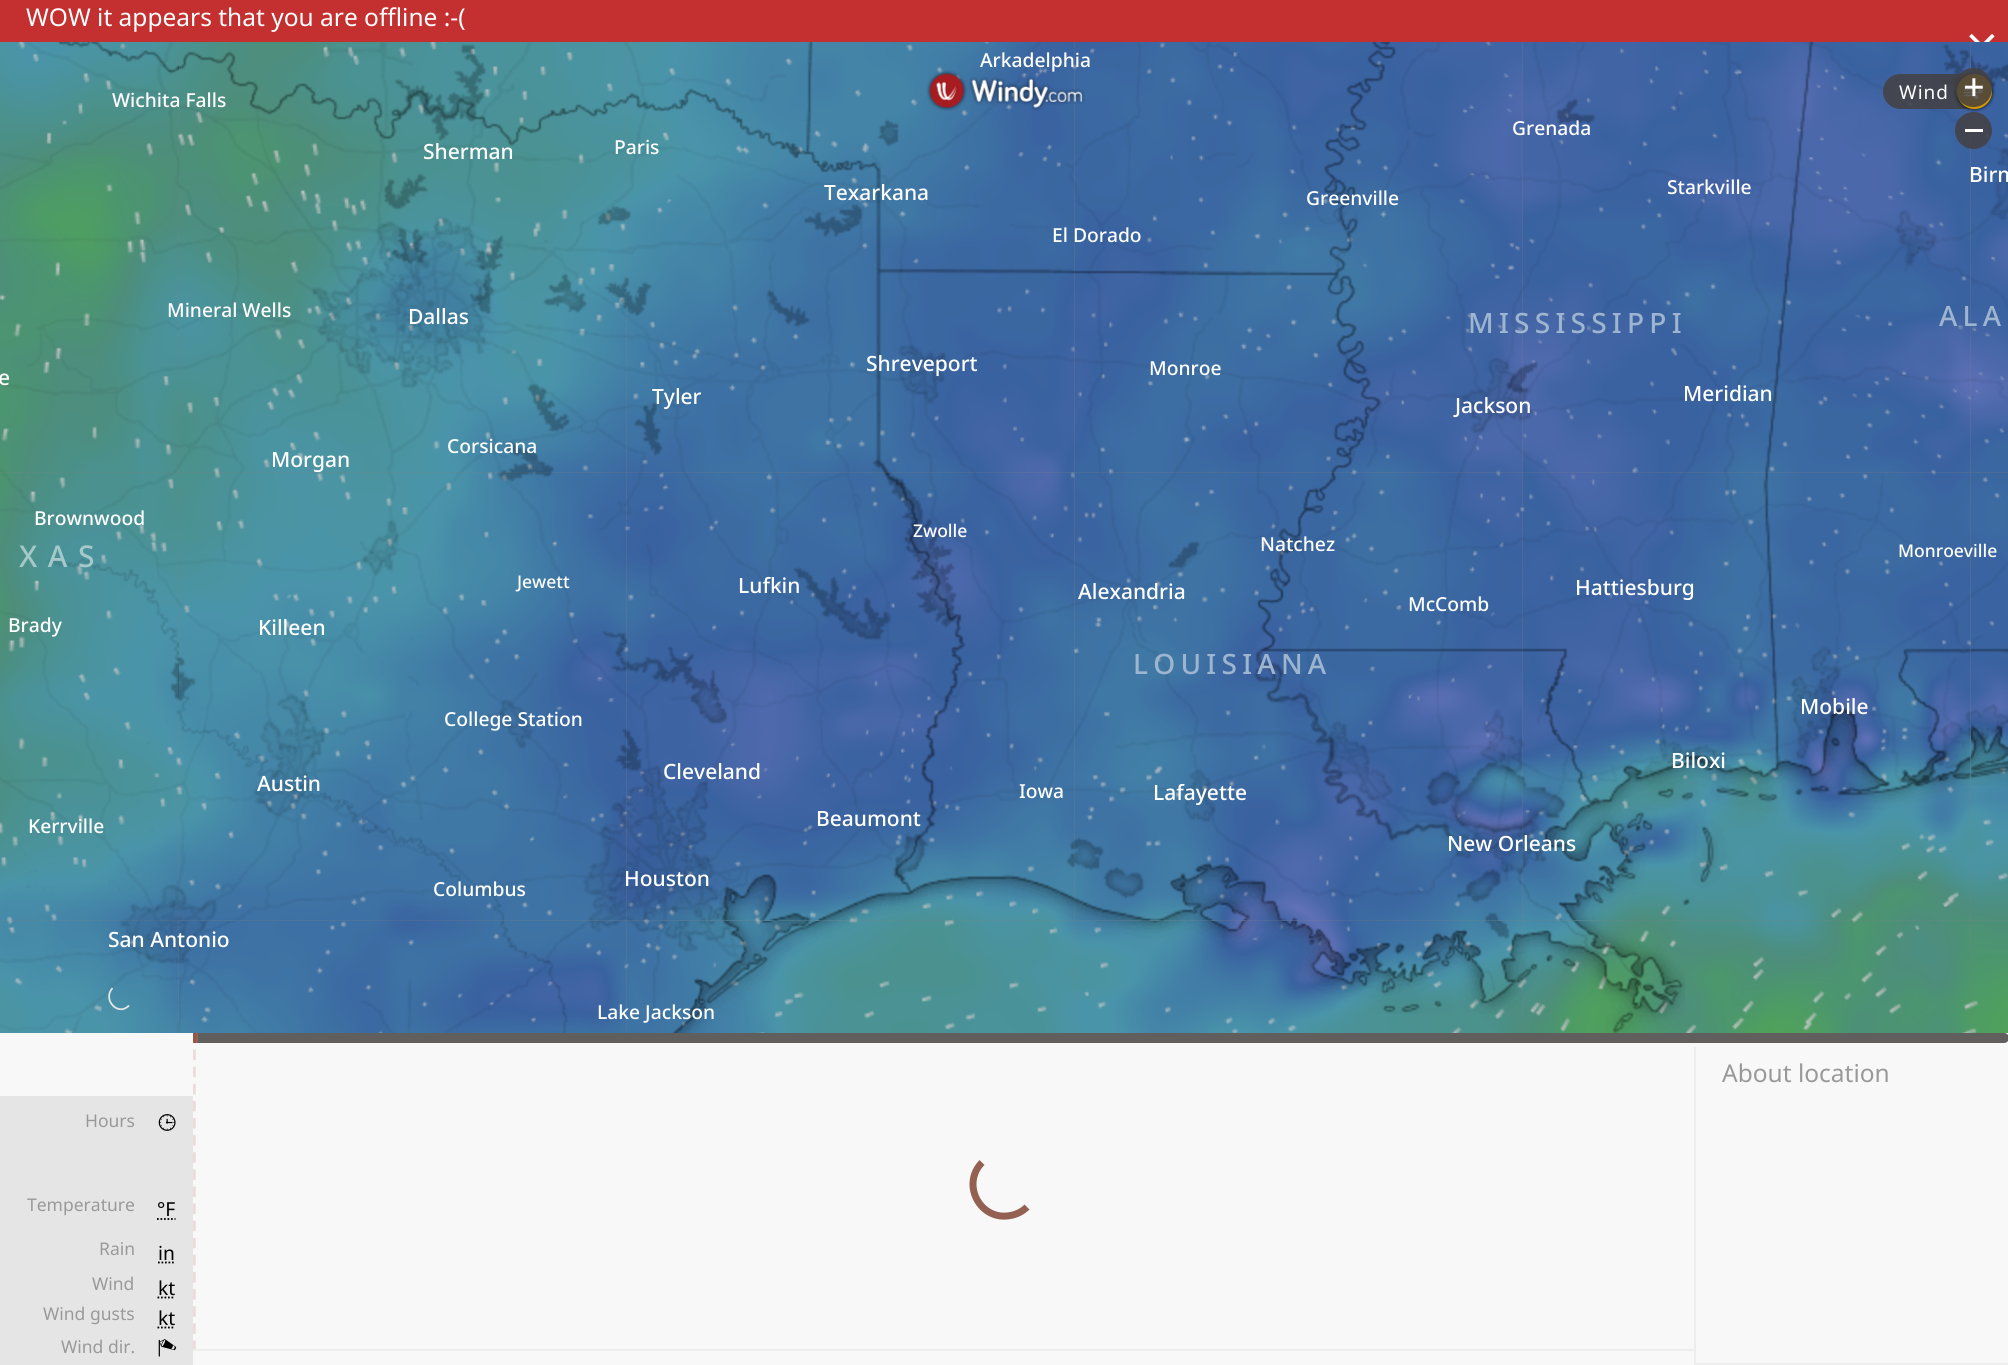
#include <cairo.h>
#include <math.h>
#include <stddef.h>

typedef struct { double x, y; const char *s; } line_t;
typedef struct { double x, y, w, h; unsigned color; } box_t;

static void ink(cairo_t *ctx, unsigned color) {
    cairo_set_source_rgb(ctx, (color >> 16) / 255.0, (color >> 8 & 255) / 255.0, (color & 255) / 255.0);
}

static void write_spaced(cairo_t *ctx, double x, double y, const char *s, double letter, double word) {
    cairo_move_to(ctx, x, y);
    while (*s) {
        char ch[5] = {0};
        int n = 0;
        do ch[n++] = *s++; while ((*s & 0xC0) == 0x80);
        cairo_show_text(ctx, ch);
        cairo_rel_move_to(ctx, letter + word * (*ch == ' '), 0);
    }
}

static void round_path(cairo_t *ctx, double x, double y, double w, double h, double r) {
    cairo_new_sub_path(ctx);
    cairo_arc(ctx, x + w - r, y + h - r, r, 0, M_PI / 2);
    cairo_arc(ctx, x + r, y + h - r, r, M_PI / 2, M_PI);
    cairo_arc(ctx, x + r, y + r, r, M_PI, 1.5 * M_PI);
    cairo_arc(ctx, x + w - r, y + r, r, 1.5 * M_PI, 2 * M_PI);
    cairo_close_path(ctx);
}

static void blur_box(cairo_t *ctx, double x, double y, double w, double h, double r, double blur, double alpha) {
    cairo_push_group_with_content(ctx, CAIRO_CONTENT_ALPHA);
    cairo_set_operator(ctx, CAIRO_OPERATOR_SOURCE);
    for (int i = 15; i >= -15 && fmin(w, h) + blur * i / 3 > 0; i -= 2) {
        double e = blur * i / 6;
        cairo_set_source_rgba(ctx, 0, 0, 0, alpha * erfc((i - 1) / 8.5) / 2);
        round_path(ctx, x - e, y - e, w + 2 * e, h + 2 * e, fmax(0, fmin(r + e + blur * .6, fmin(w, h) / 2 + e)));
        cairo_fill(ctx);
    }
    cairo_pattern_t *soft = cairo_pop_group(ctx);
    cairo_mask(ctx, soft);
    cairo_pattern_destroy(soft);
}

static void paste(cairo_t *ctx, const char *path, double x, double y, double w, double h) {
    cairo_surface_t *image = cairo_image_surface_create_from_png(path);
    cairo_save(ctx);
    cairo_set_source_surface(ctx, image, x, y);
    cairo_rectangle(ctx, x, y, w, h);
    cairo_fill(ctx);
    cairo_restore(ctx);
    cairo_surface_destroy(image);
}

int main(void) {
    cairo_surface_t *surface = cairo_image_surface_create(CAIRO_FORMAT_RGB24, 2008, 1365);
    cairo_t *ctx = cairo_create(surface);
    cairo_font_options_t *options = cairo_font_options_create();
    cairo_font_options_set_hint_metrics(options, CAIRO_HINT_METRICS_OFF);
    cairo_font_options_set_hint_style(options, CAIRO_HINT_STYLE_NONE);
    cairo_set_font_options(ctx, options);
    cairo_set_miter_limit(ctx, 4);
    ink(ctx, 0x808080);
    cairo_paint(ctx);
    ink(ctx, 0xC42F2F);
    cairo_rectangle(ctx, 0, 0, 2008, 42);
    cairo_fill(ctx);
    cairo_select_font_face(ctx, "Noto Sans", CAIRO_FONT_SLANT_NORMAL, CAIRO_FONT_WEIGHT_NORMAL);
    cairo_set_font_size(ctx, 24.5);
    ink(ctx, 0xFFFFFF);
    cairo_move_to(ctx, 26, 26);
    cairo_show_text(ctx, "WOW it appears that you are offline :-(");
    paste(ctx, "media/1.png", 1969, 33, 26, 9);
    paste(ctx, "media/4.png", 626, 42, 449, 431);
    paste(ctx, "media/5.png", 1074, 42, 449, 431);
    paste(ctx, "media/10.png", 626, 472, 449, 449);
    paste(ctx, "media/3.png", 178, 42, 449, 431);
    paste(ctx, "media/9.png", 178, 472, 449, 449);
    paste(ctx, "media/2.png", 0, 42, 179, 431);
    paste(ctx, "media/11.png", 1074, 472, 449, 449);
    paste(ctx, "media/6.png", 1522, 42, 449, 431);
    paste(ctx, "media/12.png", 1522, 472, 449, 449);
    paste(ctx, "media/7.png", 1970, 42, 38, 431);
    paste(ctx, "media/16.png", 626, 920, 449, 113);
    paste(ctx, "media/15.png", 178, 920, 449, 113);
    paste(ctx, "media/8.png", 0, 472, 179, 449);
    paste(ctx, "media/17.png", 1074, 920, 449, 113);
    paste(ctx, "media/18.png", 1522, 920, 449, 113);
    paste(ctx, "media/13.png", 1970, 472, 38, 449);
    paste(ctx, "media/14.png", 0, 920, 179, 113);
    paste(ctx, "media/19.png", 1970, 920, 38, 113);
    paste(ctx, "media/20.png", 0, 42, 2008, 991);
    paste(ctx, "media/23.png", 626, 42, 449, 431);
    paste(ctx, "media/24.png", 1074, 42, 449, 431);
    paste(ctx, "media/29.png", 626, 472, 449, 449);
    paste(ctx, "media/22.png", 178, 42, 449, 431);
    paste(ctx, "media/28.png", 178, 472, 449, 449);
    paste(ctx, "media/21.png", 0, 42, 179, 431);
    paste(ctx, "media/30.png", 1074, 472, 449, 449);
    paste(ctx, "media/25.png", 1522, 42, 449, 431);
    paste(ctx, "media/26.png", 1971, 55, 37, 347);
    paste(ctx, "media/27.png", 0, 473, 179, 448);
    paste(ctx, "media/31.png", 1522, 472, 449, 449);
    paste(ctx, "media/32.png", 1971, 560, 37, 226);
    paste(ctx, "media/33.png", 0, 921, 179, 112);
    paste(ctx, "media/34.png", 179, 921, 444, 112);
    paste(ctx, "media/35.png", 627, 921, 229, 112);
    paste(ctx, "media/36.png", 1095, 921, 428, 93);
    paste(ctx, "media/37.png", 1523, 921, 162, 112);
    cairo_select_font_face(ctx, "Noto Sans Medium", CAIRO_FONT_SLANT_NORMAL, CAIRO_FONT_WEIGHT_NORMAL);
    cairo_set_font_size(ctx, 19.25);
    cairo_move_to(ctx, 112, 107);
    cairo_show_text(ctx, "Wichita Falls");
    cairo_set_font_size(ctx, 21);
    cairo_move_to(ctx, -2, 385);
    cairo_show_text(ctx, "e");
    cairo_move_to(ctx, 423, 159);
    cairo_show_text(ctx, "Sherman");
    cairo_set_font_size(ctx, 19.25);
    cairo_move_to(ctx, 167, 317);
    cairo_show_text(ctx, "Mineral Wells");
    cairo_set_font_size(ctx, 21);
    cairo_move_to(ctx, 408, 324);
    cairo_show_text(ctx, "Dallas");
    cairo_set_font_size(ctx, 19.25);
    cairo_move_to(ctx, 447, 453);
    cairo_show_text(ctx, "Corsicana");
    cairo_set_font_size(ctx, 21);
    cairo_move_to(ctx, 271, 467);
    cairo_show_text(ctx, "Morgan");
    cairo_set_font_size(ctx, 19.25);
    cairo_move_to(ctx, 980, 67);
    cairo_show_text(ctx, "Arkadelphia");
    cairo_move_to(ctx, 614, 154);
    cairo_show_text(ctx, "Paris");
    cairo_set_font_size(ctx, 21);
    {
        static const line_t items[] = {
            {824, 200, "Texarkana"},
            {866, 371, "Shreveport"},
            {652, 404, "Tyler"},
        };
        for (size_t i = 0; i < sizeof items / sizeof *items; i++) {
            cairo_move_to(ctx, items[i].x, items[i].y);
            cairo_show_text(ctx, items[i].s);
        }
    }
    cairo_set_font_size(ctx, 19.25);
    {
        static const line_t items[] = {
            {1306, 205, "Greenville"},
            {1052, 242, "El Dorado"},
            {1149, 375, "Monroe"},
        };
        for (size_t i = 0; i < sizeof items / sizeof *items; i++) {
            cairo_move_to(ctx, items[i].x, items[i].y);
            cairo_show_text(ctx, items[i].s);
        }
    }
    cairo_set_font_size(ctx, 21);
    cairo_move_to(ctx, 1455, 413);
    cairo_show_text(ctx, "Jackson");
    cairo_set_font_size(ctx, 19.25);
    cairo_move_to(ctx, 1512, 135);
    cairo_show_text(ctx, "Grenada");
    cairo_move_to(ctx, 1667, 194);
    cairo_show_text(ctx, "Starkville");
    cairo_set_font_size(ctx, 28);
    ink(ctx, 0x9EB5D0);
    write_spaced(ctx, 1468, 333, "MISSISSIPPI", 5.25, 0);
    cairo_set_font_size(ctx, 21);
    ink(ctx, 0xFFFFFF);
    cairo_move_to(ctx, 1683, 401);
    cairo_show_text(ctx, "Meridian");
    cairo_move_to(ctx, 1969, 182);
    cairo_show_text(ctx, "Birm");
    cairo_set_font_size(ctx, 28);
    ink(ctx, 0x9EB5D0);
    write_spaced(ctx, 1939, 326, "ALA", 5.25, 0);
    cairo_set_font_size(ctx, 19.25);
    ink(ctx, 0xFFFFFF);
    cairo_move_to(ctx, 34, 525);
    cairo_show_text(ctx, "Brownwood");
    cairo_set_font_size(ctx, 30);
    ink(ctx, 0xA5C8C8);
    write_spaced(ctx, 19, 567, "XAS", 10.5, 0);
    cairo_set_font_size(ctx, 19.25);
    ink(ctx, 0xFFFFFF);
    cairo_move_to(ctx, 8, 632);
    cairo_show_text(ctx, "Brady");
    cairo_move_to(ctx, 28, 833);
    cairo_show_text(ctx, "Kerrville");
    cairo_set_font_size(ctx, 17.5);
    cairo_move_to(ctx, 517, 588);
    cairo_show_text(ctx, "Jewett");
    cairo_set_font_size(ctx, 21);
    cairo_move_to(ctx, 258, 635);
    cairo_show_text(ctx, "Killeen");
    cairo_set_font_size(ctx, 19.25);
    cairo_move_to(ctx, 444, 726);
    cairo_show_text(ctx, "College Station");
    cairo_set_font_size(ctx, 21);
    cairo_move_to(ctx, 257, 791);
    cairo_show_text(ctx, "Austin");
    cairo_set_font_size(ctx, 19.25);
    cairo_move_to(ctx, 433, 896);
    cairo_show_text(ctx, "Columbus");
    cairo_set_font_size(ctx, 17.5);
    cairo_move_to(ctx, 913, 537);
    cairo_show_text(ctx, "Zwolle");
    cairo_set_font_size(ctx, 21);
    cairo_move_to(ctx, 738, 593);
    cairo_show_text(ctx, "Lufkin");
    cairo_move_to(ctx, 663, 779);
    cairo_show_text(ctx, "Cleveland");
    cairo_set_font_size(ctx, 19.25);
    cairo_move_to(ctx, 1019, 798);
    cairo_show_text(ctx, "Iowa");
    cairo_set_font_size(ctx, 21);
    cairo_move_to(ctx, 816, 826);
    cairo_show_text(ctx, "Beaumont");
    cairo_move_to(ctx, 624, 886);
    cairo_show_text(ctx, "Houston");
    cairo_set_font_size(ctx, 19.25);
    cairo_move_to(ctx, 1260, 551);
    cairo_show_text(ctx, "Natchez");
    cairo_set_font_size(ctx, 21);
    cairo_move_to(ctx, 1078, 599);
    cairo_show_text(ctx, "Alexandria");
    cairo_set_font_size(ctx, 19.25);
    cairo_move_to(ctx, 1408, 611);
    cairo_show_text(ctx, "McComb");
    cairo_set_font_size(ctx, 28);
    ink(ctx, 0x9EB5D0);
    write_spaced(ctx, 1133, 674, "LOUISIANA", 5.25, 0);
    cairo_set_font_size(ctx, 21);
    ink(ctx, 0xFFFFFF);
    cairo_move_to(ctx, 1153, 800);
    cairo_show_text(ctx, "Lafayette");
    cairo_move_to(ctx, 1447, 851);
    cairo_show_text(ctx, "New Orleans");
    cairo_set_font_size(ctx, 17.5);
    cairo_move_to(ctx, 1898, 557);
    cairo_show_text(ctx, "Monroeville");
    cairo_set_font_size(ctx, 21);
    {
        static const line_t items[] = {
            {1575, 595, "Hattiesburg"},
            {1800, 714, "Mobile"},
            {1671, 768, "Biloxi"},
            {108, 947, "San Antonio"},
        };
        for (size_t i = 0; i < sizeof items / sizeof *items; i++) {
            cairo_move_to(ctx, items[i].x, items[i].y);
            cairo_show_text(ctx, items[i].s);
        }
    }
    cairo_set_font_size(ctx, 19.25);
    cairo_move_to(ctx, 597, 1019);
    cairo_show_text(ctx, "Lake Jackson");
    paste(ctx, "media/38.png", 926, 70, 41, 41);
    paste(ctx, "media/39.png", 969, 76, 116, 35);
    cairo_set_source_rgba(ctx, 0.267, 0.255, 0.255, 0.84);
    round_path(ctx, 1883, 74, 109, 35, 17.5);
    cairo_fill(ctx);
    cairo_select_font_face(ctx, "Noto Sans", CAIRO_FONT_SLANT_NORMAL, CAIRO_FONT_WEIGHT_NORMAL);
    cairo_set_font_size(ctx, 19);
    ink(ctx, 0xFFFFFF);
    write_spaced(ctx, 1899, 99, "Wind", 1, 0);
    cairo_save(ctx);
    cairo_set_fill_rule(ctx, CAIRO_FILL_RULE_EVEN_ODD);
    cairo_new_path(ctx);
    cairo_move_to(ctx, 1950, 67);
    cairo_line_to(ctx, 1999, 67);
    cairo_line_to(ctx, 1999, 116);
    cairo_line_to(ctx, 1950, 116);
    cairo_close_path(ctx);
    cairo_move_to(ctx, 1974.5, 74);
    cairo_curve_to(ctx, 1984, 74, 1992, 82, 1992, 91.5);
    cairo_curve_to(ctx, 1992, 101, 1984, 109, 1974.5, 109);
    cairo_curve_to(ctx, 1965, 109, 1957, 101, 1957, 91.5);
    cairo_curve_to(ctx, 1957, 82, 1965, 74, 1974.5, 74);
    cairo_close_path(ctx);
    cairo_clip(ctx);
    ink(ctx, 0x000000);
    blur_box(ctx, 1957, 74, 35, 35, 17.5, 2, 1);
    cairo_restore(ctx);
    ink(ctx, 0xD49500);
    cairo_arc(ctx, 1974.5, 91.5, 17.5, 0, 2 * M_PI);
    cairo_fill(ctx);
    paste(ctx, "media/40.png", 1963, 88, 20, 12);
    cairo_set_source_rgba(ctx, 0.267, 0.255, 0.255, 0.84);
    round_path(ctx, 1955, 68, 37, 39, 18.5);
    cairo_fill(ctx);
    paste(ctx, "media/41.png", 1964, 78, 19, 19);
    cairo_arc(ctx, 1973.5, 130.5, 18.5, 0, 2 * M_PI);
    cairo_fill(ctx);
    ink(ctx, 0xFFFFFF);
    cairo_rectangle(ctx, 1965, 129, 18, 3);
    cairo_fill(ctx);
    cairo_new_path(ctx);
    cairo_move_to(ctx, 129, 1005.5);
    cairo_curve_to(ctx, 118, 1017, 102, 999.5, 112.5, 988);
    ink(ctx, 0xE5E5E5);
    cairo_set_line_width(ctx, 1.8);
    cairo_stroke(ctx);
    ink(ctx, 0xF8F8F8);
    cairo_rectangle(ctx, 0, 1033, 2008, 332);
    cairo_fill(ctx);
    ink(ctx, 0x615E5E);
    round_path(ctx, 193, 1033, 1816, 10, 5);
    cairo_fill(ctx);
    ink(ctx, 0x946051);
    cairo_rectangle(ctx, 193, 1033, 5, 10);
    cairo_fill(ctx);
    cairo_save(ctx);
    cairo_rectangle(ctx, 193, 1033, 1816, 332);
    cairo_clip(ctx);
    cairo_new_path(ctx);
    cairo_move_to(ctx, 194, 1032.5);
    cairo_line_to(ctx, 194, 1351);
    cairo_set_source_rgba(ctx, 0.616, 0.012, 0, 0.12);
    cairo_set_line_width(ctx, 3.5);
    cairo_set_dash(ctx, (double[]){10.5, 6.61}, 2, 0);
    cairo_stroke(ctx);
    cairo_restore(ctx);
    {
        static const box_t items[] = {
            {1694, 1363, 314, 2, 0xEDEDED},
            {1694, 1047, 2, 318, 0xEDEDED},
            {193, 1349, 1503, 2, 0xEDEDED},
        };
        for (size_t i = 0; i < sizeof items / sizeof *items; i++) {
            ink(ctx, items[i].color);
            cairo_rectangle(ctx, items[i].x, items[i].y, items[i].w, items[i].h);
            cairo_fill(ctx);
        }
    }
    cairo_set_font_size(ctx, 24.5);
    ink(ctx, 0x999999);
    cairo_move_to(ctx, 1722, 1082);
    cairo_show_text(ctx, "About location");
    ink(ctx, 0xE5E5E5);
    cairo_rectangle(ctx, 0, 1096, 193, 269);
    cairo_fill(ctx);
    cairo_set_font_size(ctx, 17.5);
    ink(ctx, 0x999999);
    cairo_move_to(ctx, 85, 1127);
    cairo_show_text(ctx, "Hours");
    paste(ctx, "media/42.png", 158, 1114, 18, 17);
    cairo_move_to(ctx, 27, 1211);
    cairo_show_text(ctx, "Temperature");
    cairo_set_font_size(ctx, 19.25);
    ink(ctx, 0x000000);
    cairo_move_to(ctx, 157, 1216);
    cairo_show_text(ctx, "°F");
    cairo_new_path(ctx);
    cairo_move_to(ctx, 157, 1219);
    cairo_line_to(ctx, 175.5, 1219);
    cairo_set_dash(ctx, (double[]){1.75, 1.75}, 2, 0);
    cairo_stroke(ctx);
    cairo_set_font_size(ctx, 17.5);
    ink(ctx, 0x999999);
    cairo_move_to(ctx, 99, 1255);
    cairo_show_text(ctx, "Rain");
    cairo_set_font_size(ctx, 19.25);
    ink(ctx, 0x000000);
    cairo_move_to(ctx, 158, 1260);
    cairo_show_text(ctx, "in");
    cairo_new_path(ctx);
    cairo_move_to(ctx, 158, 1262.5);
    cairo_line_to(ctx, 174.5, 1262.5);
    cairo_stroke(ctx);
    cairo_set_font_size(ctx, 17.5);
    ink(ctx, 0x999999);
    cairo_move_to(ctx, 92, 1290);
    cairo_show_text(ctx, "Wind");
    cairo_set_font_size(ctx, 19.25);
    ink(ctx, 0x000000);
    cairo_move_to(ctx, 158, 1295);
    cairo_show_text(ctx, "kt");
    cairo_new_path(ctx);
    cairo_move_to(ctx, 157.5, 1297.5);
    cairo_line_to(ctx, 175, 1297.5);
    cairo_stroke(ctx);
    cairo_set_font_size(ctx, 17.5);
    ink(ctx, 0x999999);
    cairo_move_to(ctx, 43, 1320);
    cairo_show_text(ctx, "Wind gusts");
    cairo_set_font_size(ctx, 19.25);
    ink(ctx, 0x000000);
    cairo_move_to(ctx, 158, 1325);
    cairo_show_text(ctx, "kt");
    cairo_new_path(ctx);
    cairo_move_to(ctx, 157.5, 1327.5);
    cairo_line_to(ctx, 175, 1327.5);
    cairo_stroke(ctx);
    cairo_set_font_size(ctx, 17.5);
    ink(ctx, 0x999999);
    cairo_move_to(ctx, 61, 1353);
    cairo_show_text(ctx, "Wind dir.");
    paste(ctx, "media/43.png", 158, 1339, 19, 18);
    cairo_new_path(ctx);
    cairo_move_to(ctx, 1027, 1207);
    cairo_curve_to(ctx, 1022.5, 1211.5, 1016.5, 1214.5, 1010.5, 1215.5);
    cairo_curve_to(ctx, 980.5, 1221.5, 960.5, 1184.5, 982, 1162.5);
    ink(ctx, 0x946051);
    cairo_set_line_width(ctx, 7);
    cairo_set_dash(ctx, NULL, 0, 0);
    cairo_stroke(ctx);
    cairo_surface_write_to_png(surface, "image.png");
    cairo_font_options_destroy(options);
    cairo_destroy(ctx);
    cairo_surface_destroy(surface);
    return 0;
}
